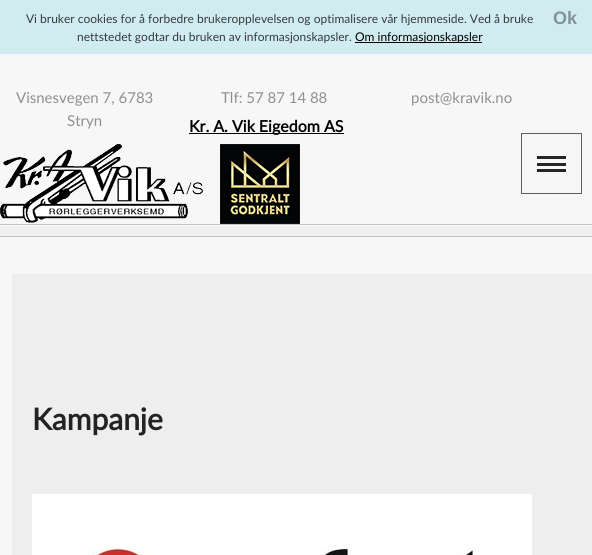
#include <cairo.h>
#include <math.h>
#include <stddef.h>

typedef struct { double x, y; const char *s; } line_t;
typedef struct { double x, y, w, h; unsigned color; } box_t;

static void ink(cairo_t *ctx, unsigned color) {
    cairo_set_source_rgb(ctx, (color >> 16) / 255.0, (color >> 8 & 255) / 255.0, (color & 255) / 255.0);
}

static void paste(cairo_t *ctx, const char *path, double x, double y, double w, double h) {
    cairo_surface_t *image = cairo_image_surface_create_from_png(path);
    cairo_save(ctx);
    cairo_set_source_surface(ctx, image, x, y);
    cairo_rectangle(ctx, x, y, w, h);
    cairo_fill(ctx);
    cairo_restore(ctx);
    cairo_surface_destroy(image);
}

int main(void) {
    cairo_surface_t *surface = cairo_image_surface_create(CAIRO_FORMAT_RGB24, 592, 555);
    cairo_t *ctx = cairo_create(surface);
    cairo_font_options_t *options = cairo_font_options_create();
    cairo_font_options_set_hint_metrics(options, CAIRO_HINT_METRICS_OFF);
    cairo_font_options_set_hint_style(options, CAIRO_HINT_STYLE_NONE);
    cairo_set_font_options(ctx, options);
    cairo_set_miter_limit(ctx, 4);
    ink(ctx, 0xF7F7F7);
    cairo_paint(ctx);
    ink(ctx, 0xD1ECF1);
    cairo_rectangle(ctx, 0, 0, 592, 54);
    cairo_fill(ctx);
    cairo_select_font_face(ctx, "Lato", CAIRO_FONT_SLANT_NORMAL, CAIRO_FONT_WEIGHT_NORMAL);
    cairo_set_font_size(ctx, 12);
    ink(ctx, 0x343A40);
    cairo_move_to(ctx, 26, 23);
    cairo_show_text(ctx, "Vi bruker cookies for å forbedre brukeropplevelsen og optimalisere vår hjemmeside. Ved å bruke");
    cairo_select_font_face(ctx, "Liberation Sans", CAIRO_FONT_SLANT_NORMAL, CAIRO_FONT_WEIGHT_BOLD);
    cairo_set_font_size(ctx, 18);
    ink(ctx, 0x839399);
    cairo_move_to(ctx, 553, 24);
    cairo_show_text(ctx, "Ok");
    cairo_select_font_face(ctx, "Lato", CAIRO_FONT_SLANT_NORMAL, CAIRO_FONT_WEIGHT_NORMAL);
    cairo_set_font_size(ctx, 12);
    ink(ctx, 0x343A40);
    cairo_move_to(ctx, 77, 41);
    cairo_show_text(ctx, "nettstedet godtar du bruken av informasjonskapsler.");
    ink(ctx, 0x000000);
    cairo_rectangle(ctx, 355, 42, 127, 1);
    cairo_fill(ctx);
    cairo_move_to(ctx, 355, 41);
    cairo_show_text(ctx, "Om informasjonskapsler");
    cairo_set_font_size(ctx, 15);
    ink(ctx, 0x909090);
    {
        static const line_t items[] = {
            {16, 103, "Visnesvegen 7, 6783"},
            {67, 126, "Stryn"},
            {221, 103, "Tlf: 57 87 14 88"},
            {411, 103, "post@kravik.no"},
        };
        for (size_t i = 0; i < sizeof items / sizeof *items; i++) {
            cairo_move_to(ctx, items[i].x, items[i].y);
            cairo_show_text(ctx, items[i].s);
        }
    }
    ink(ctx, 0x000000);
    cairo_rectangle(ctx, 189, 133, 155, 1);
    cairo_fill(ctx);
    cairo_select_font_face(ctx, "Lato", CAIRO_FONT_SLANT_NORMAL, CAIRO_FONT_WEIGHT_BOLD);
    cairo_set_font_size(ctx, 16);
    cairo_move_to(ctx, 189, 132);
    cairo_show_text(ctx, "Kr. A. Vik Eigedom AS");
    paste(ctx, "media/1.png", 0, 144, 203, 79);
    paste(ctx, "media/2.png", 220, 144, 80, 80);
    paste(ctx, "media/3.png", 0, 224, 592, 13);
    cairo_rectangle(ctx, 521.5, 133.5, 60, 60);
    ink(ctx, 0x5D5D5D);
    cairo_set_line_width(ctx, 1);
    cairo_stroke(ctx);
    {
        static const box_t items[] = {
            {537, 156, 29, 3, 0x262626},
            {537, 163, 29, 3, 0x262626},
            {537, 169, 29, 3, 0x262626},
            {12, 274, 580, 281, 0xEEEEEE},
        };
        for (size_t i = 0; i < sizeof items / sizeof *items; i++) {
            ink(ctx, items[i].color);
            cairo_rectangle(ctx, items[i].x, items[i].y, items[i].w, items[i].h);
            cairo_fill(ctx);
        }
    }
    cairo_set_font_size(ctx, 30);
    ink(ctx, 0x232323);
    cairo_move_to(ctx, 32, 430);
    cairo_show_text(ctx, "Kampanje");
    paste(ctx, "media/4.png", 32, 494, 500, 61);
    cairo_surface_write_to_png(surface, "image.png");
    cairo_font_options_destroy(options);
    cairo_destroy(ctx);
    cairo_surface_destroy(surface);
    return 0;
}
